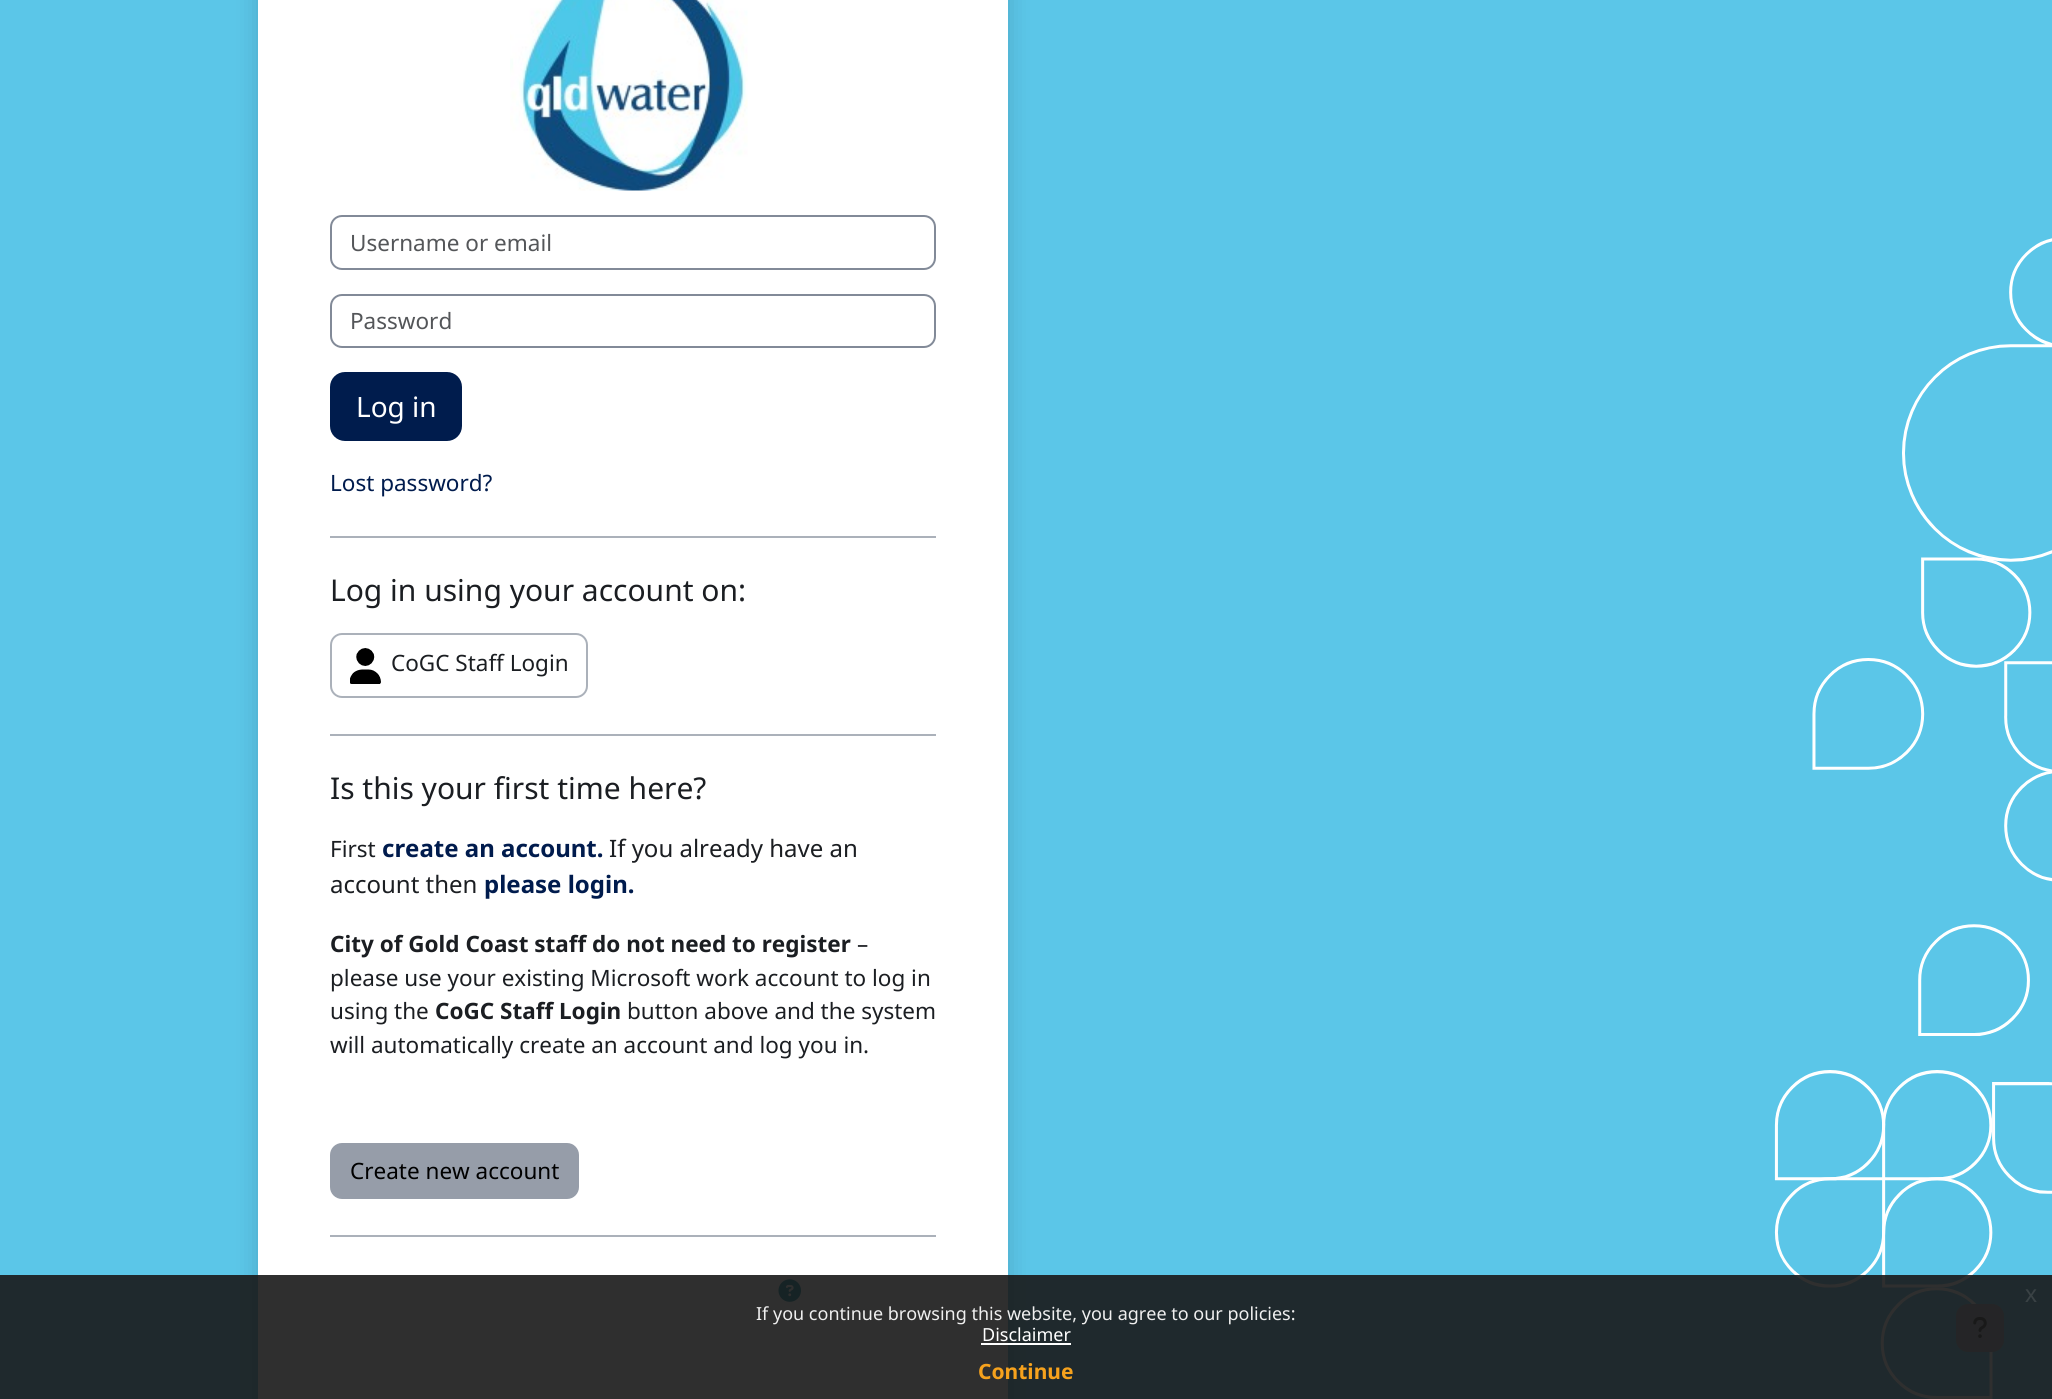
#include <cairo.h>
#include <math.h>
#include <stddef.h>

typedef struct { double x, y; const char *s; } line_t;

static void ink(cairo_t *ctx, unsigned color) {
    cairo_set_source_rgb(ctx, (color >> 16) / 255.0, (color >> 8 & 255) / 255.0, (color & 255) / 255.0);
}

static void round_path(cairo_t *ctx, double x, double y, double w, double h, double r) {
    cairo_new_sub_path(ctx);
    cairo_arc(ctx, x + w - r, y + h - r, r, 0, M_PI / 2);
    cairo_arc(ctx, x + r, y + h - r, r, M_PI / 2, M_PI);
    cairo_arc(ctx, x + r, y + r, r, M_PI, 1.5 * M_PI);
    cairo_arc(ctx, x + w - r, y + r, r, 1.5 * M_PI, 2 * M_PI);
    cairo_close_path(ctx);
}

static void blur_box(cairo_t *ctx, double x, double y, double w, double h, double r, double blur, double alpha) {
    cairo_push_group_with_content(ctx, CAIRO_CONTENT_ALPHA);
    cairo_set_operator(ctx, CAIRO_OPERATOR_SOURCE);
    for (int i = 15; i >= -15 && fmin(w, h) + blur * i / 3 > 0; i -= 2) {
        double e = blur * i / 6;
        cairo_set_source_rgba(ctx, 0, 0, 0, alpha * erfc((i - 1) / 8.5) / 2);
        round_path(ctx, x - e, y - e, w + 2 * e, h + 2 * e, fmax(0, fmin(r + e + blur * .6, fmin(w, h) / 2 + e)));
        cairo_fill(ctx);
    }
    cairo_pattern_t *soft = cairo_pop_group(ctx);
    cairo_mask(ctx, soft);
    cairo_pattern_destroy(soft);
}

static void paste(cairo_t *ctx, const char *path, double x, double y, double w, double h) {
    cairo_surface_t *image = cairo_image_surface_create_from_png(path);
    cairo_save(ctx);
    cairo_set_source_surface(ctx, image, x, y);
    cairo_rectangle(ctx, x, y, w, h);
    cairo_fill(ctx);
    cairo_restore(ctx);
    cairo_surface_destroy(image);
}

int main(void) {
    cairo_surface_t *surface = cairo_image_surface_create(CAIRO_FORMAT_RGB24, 2052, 1399);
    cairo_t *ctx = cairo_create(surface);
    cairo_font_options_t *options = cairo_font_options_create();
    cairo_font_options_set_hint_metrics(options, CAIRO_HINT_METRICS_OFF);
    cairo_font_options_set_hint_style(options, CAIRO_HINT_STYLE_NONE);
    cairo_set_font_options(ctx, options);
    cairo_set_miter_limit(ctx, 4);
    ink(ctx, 0x5BC6E8);
    cairo_paint(ctx);
    paste(ctx, "media/1.png", 1774, 238, 278, 1161);
    ink(ctx, 0x000000);
    blur_box(ctx, 258, -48, 750, 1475, 12, 12, 0.15);
    ink(ctx, 0xFFFFFF);
    cairo_rectangle(ctx, 258, 0, 750, 1399);
    cairo_fill(ctx);
    paste(ctx, "media/2.png", 510, 0, 238, 191);
    round_path(ctx, 331, 216, 604, 53, 11);
    ink(ctx, 0x828A98);
    cairo_stroke(ctx);
    cairo_select_font_face(ctx, "Noto Sans", CAIRO_FONT_SLANT_NORMAL, CAIRO_FONT_WEIGHT_NORMAL);
    cairo_set_font_size(ctx, 22.5);
    ink(ctx, 0x545659);
    cairo_move_to(ctx, 350, 251);
    cairo_show_text(ctx, "Username or email");
    round_path(ctx, 331, 295, 604, 52, 11);
    ink(ctx, 0x828A98);
    cairo_stroke(ctx);
    ink(ctx, 0x545659);
    cairo_move_to(ctx, 350, 329);
    cairo_show_text(ctx, "Password");
    ink(ctx, 0x001C4D);
    round_path(ctx, 331, 373, 130, 67, 14);
    cairo_fill_preserve(ctx);
    cairo_stroke(ctx);
    cairo_set_font_size(ctx, 28);
    ink(ctx, 0xFFFFFF);
    cairo_move_to(ctx, 356, 417);
    cairo_show_text(ctx, "Log in");
    cairo_set_font_size(ctx, 22.5);
    ink(ctx, 0x001B4D);
    cairo_move_to(ctx, 330, 491);
    cairo_show_text(ctx, "Lost password?");
    ink(ctx, 0xABB1BA);
    cairo_rectangle(ctx, 330, 536, 606, 2);
    cairo_fill(ctx);
    cairo_set_font_size(ctx, 30);
    ink(ctx, 0x1B1E22);
    cairo_move_to(ctx, 330, 601);
    cairo_show_text(ctx, "Log in using your account on:");
    round_path(ctx, 331, 634, 256, 63, 11);
    ink(ctx, 0xABB1BA);
    cairo_stroke(ctx);
    paste(ctx, "media/3.png", 350, 648, 31, 36);
    cairo_set_font_size(ctx, 22.5);
    ink(ctx, 0x1B1E22);
    cairo_move_to(ctx, 391, 671);
    cairo_show_text(ctx, "CoGC Staff Login");
    ink(ctx, 0xABB1BA);
    cairo_rectangle(ctx, 330, 734, 606, 2);
    cairo_fill(ctx);
    cairo_set_font_size(ctx, 30);
    ink(ctx, 0x1B1E22);
    cairo_move_to(ctx, 330, 799);
    cairo_show_text(ctx, "Is this your first time here?");
    cairo_set_font_size(ctx, 22.5);
    cairo_move_to(ctx, 330, 857);
    cairo_show_text(ctx, "First");
    cairo_select_font_face(ctx, "Noto Sans", CAIRO_FONT_SLANT_NORMAL, CAIRO_FONT_WEIGHT_BOLD);
    cairo_set_font_size(ctx, 24);
    ink(ctx, 0x001B4D);
    cairo_move_to(ctx, 382, 857);
    cairo_show_text(ctx, "create an account.");
    cairo_select_font_face(ctx, "Noto Sans", CAIRO_FONT_SLANT_NORMAL, CAIRO_FONT_WEIGHT_NORMAL);
    ink(ctx, 0x1B1E22);
    cairo_move_to(ctx, 609, 857);
    cairo_show_text(ctx, "If you already have an");
    cairo_move_to(ctx, 330, 893);
    cairo_show_text(ctx, "account then");
    cairo_select_font_face(ctx, "Noto Sans", CAIRO_FONT_SLANT_NORMAL, CAIRO_FONT_WEIGHT_BOLD);
    ink(ctx, 0x001B4D);
    cairo_move_to(ctx, 484, 893);
    cairo_show_text(ctx, "please login.");
    cairo_set_font_size(ctx, 22.5);
    ink(ctx, 0x1B1E22);
    cairo_move_to(ctx, 330, 952);
    cairo_show_text(ctx, "City of Gold Coast staff do not need to register");
    cairo_select_font_face(ctx, "Noto Sans", CAIRO_FONT_SLANT_NORMAL, CAIRO_FONT_WEIGHT_NORMAL);
    {
        static const line_t items[] = {
            {857, 952, "–"},
            {330, 986, "please use your existing Microsoft work account to log in"},
            {330, 1019, "using the"},
        };
        for (size_t i = 0; i < sizeof items / sizeof *items; i++) {
            cairo_move_to(ctx, items[i].x, items[i].y);
            cairo_show_text(ctx, items[i].s);
        }
    }
    cairo_select_font_face(ctx, "Noto Sans", CAIRO_FONT_SLANT_NORMAL, CAIRO_FONT_WEIGHT_BOLD);
    cairo_move_to(ctx, 435, 1019);
    cairo_show_text(ctx, "CoGC Staff Login");
    cairo_select_font_face(ctx, "Noto Sans", CAIRO_FONT_SLANT_NORMAL, CAIRO_FONT_WEIGHT_NORMAL);
    cairo_move_to(ctx, 627, 1019);
    cairo_show_text(ctx, "button above and the system");
    cairo_move_to(ctx, 330, 1053);
    cairo_show_text(ctx, "will automatically create an account and log you in.");
    ink(ctx, 0x969DA9);
    round_path(ctx, 331, 1144, 247, 54, 11);
    cairo_fill_preserve(ctx);
    cairo_stroke(ctx);
    ink(ctx, 0x000000);
    cairo_move_to(ctx, 350, 1179);
    cairo_show_text(ctx, "Create new account");
    ink(ctx, 0xABB1BA);
    cairo_rectangle(ctx, 330, 1235, 606, 2);
    cairo_fill(ctx);
    paste(ctx, "media/4.png", 778, 1279, 23, 23);
    ink(ctx, 0x969DA9);
    round_path(ctx, 1956, 1304, 48, 48, 12);
    cairo_fill(ctx);
    paste(ctx, "media/5.png", 1973, 1317, 14, 21);
    cairo_set_source_rgba(ctx, 0.098, 0.098, 0.098, 0.9);
    cairo_rectangle(ctx, 0, 1275, 2052, 124);
    cairo_fill(ctx);
    cairo_select_font_face(ctx, "Liberation Sans", CAIRO_FONT_SLANT_NORMAL, CAIRO_FONT_WEIGHT_NORMAL);
    cairo_set_font_size(ctx, 24);
    ink(ctx, 0x3A4245);
    cairo_move_to(ctx, 2025, 1302);
    cairo_show_text(ctx, "x");
    cairo_select_font_face(ctx, "Noto Sans", CAIRO_FONT_SLANT_NORMAL, CAIRO_FONT_WEIGHT_NORMAL);
    cairo_set_font_size(ctx, 18);
    ink(ctx, 0xEFEFEF);
    cairo_move_to(ctx, 756, 1320);
    cairo_show_text(ctx, "If you continue browsing this website, you agree to our policies:");
    ink(ctx, 0xFFFFFF);
    cairo_move_to(ctx, 982, 1341);
    cairo_show_text(ctx, "Disclaimer");
    cairo_rectangle(ctx, 981, 1343, 90, 2);
    cairo_fill(ctx);
    cairo_select_font_face(ctx, "Noto Sans", CAIRO_FONT_SLANT_NORMAL, CAIRO_FONT_WEIGHT_BOLD);
    cairo_set_font_size(ctx, 21);
    ink(ctx, 0xF6A21D);
    cairo_move_to(ctx, 978, 1379);
    cairo_show_text(ctx, "Continue");
    cairo_surface_write_to_png(surface, "image.png");
    cairo_font_options_destroy(options);
    cairo_destroy(ctx);
    cairo_surface_destroy(surface);
    return 0;
}
